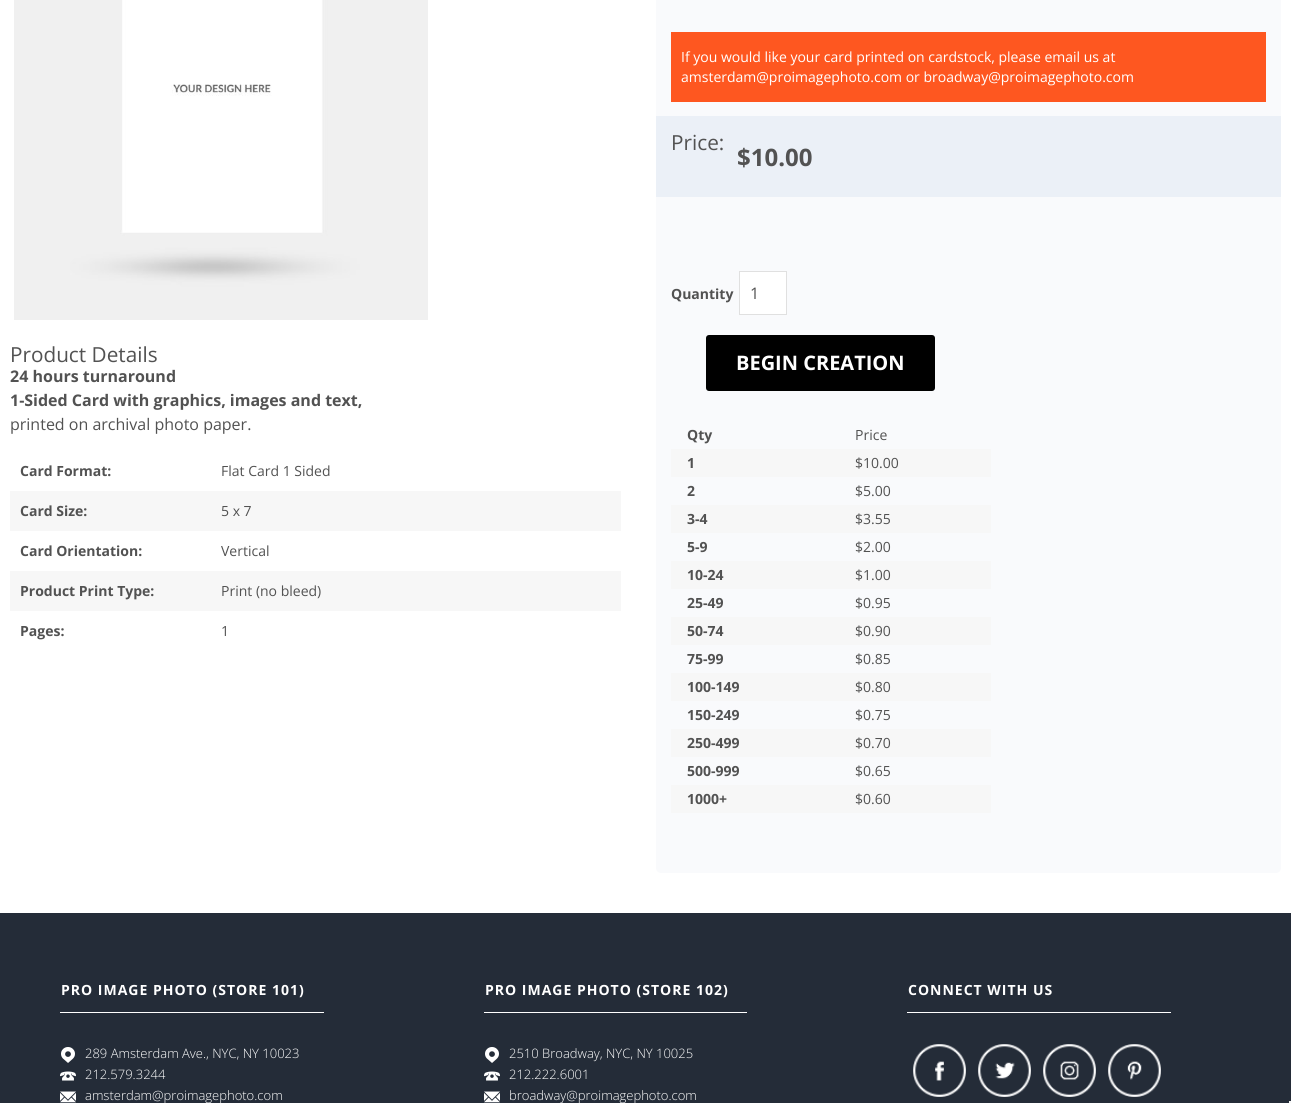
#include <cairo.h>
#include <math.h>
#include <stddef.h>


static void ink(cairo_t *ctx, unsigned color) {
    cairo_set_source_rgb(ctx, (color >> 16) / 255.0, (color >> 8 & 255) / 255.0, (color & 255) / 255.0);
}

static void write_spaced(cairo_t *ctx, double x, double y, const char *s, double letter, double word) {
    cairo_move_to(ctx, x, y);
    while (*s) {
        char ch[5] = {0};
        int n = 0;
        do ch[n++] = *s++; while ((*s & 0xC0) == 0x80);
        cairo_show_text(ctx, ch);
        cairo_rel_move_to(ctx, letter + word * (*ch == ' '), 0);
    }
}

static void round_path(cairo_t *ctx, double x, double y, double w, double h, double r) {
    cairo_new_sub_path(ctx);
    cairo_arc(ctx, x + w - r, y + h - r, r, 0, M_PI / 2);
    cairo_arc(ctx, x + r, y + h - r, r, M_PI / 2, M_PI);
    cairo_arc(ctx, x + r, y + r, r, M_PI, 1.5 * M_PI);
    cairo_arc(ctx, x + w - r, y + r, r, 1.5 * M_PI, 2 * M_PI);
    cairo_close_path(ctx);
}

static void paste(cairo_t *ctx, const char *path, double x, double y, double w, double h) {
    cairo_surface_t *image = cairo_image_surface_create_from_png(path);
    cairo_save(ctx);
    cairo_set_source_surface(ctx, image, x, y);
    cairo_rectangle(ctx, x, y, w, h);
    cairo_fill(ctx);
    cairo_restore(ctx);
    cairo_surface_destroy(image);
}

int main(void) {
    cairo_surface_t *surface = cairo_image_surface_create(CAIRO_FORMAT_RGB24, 1291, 1103);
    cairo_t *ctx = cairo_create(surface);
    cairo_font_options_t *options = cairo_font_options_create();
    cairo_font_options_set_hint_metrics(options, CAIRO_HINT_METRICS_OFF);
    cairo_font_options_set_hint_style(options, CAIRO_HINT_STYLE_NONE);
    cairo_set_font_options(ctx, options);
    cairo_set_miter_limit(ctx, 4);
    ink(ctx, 0xFFFFFF);
    cairo_paint(ctx);
    paste(ctx, "media/1.png", 14, 0, 414, 320);
    cairo_select_font_face(ctx, "Open Sans", CAIRO_FONT_SLANT_NORMAL, CAIRO_FONT_WEIGHT_NORMAL);
    cairo_set_font_size(ctx, 20.75);
    ink(ctx, 0x525252);
    cairo_move_to(ctx, 10, 362);
    cairo_show_text(ctx, "Product Details");
    cairo_select_font_face(ctx, "Open Sans", CAIRO_FONT_SLANT_NORMAL, CAIRO_FONT_WEIGHT_BOLD);
    cairo_set_font_size(ctx, 16);
    cairo_move_to(ctx, 10, 382);
    cairo_show_text(ctx, "24 hours turnaround");
    cairo_move_to(ctx, 10, 406);
    cairo_show_text(ctx, "1-Sided Card with graphics, images and text,");
    cairo_select_font_face(ctx, "Open Sans", CAIRO_FONT_SLANT_NORMAL, CAIRO_FONT_WEIGHT_NORMAL);
    cairo_move_to(ctx, 10, 430);
    cairo_show_text(ctx, "printed on archival photo paper.");
    cairo_select_font_face(ctx, "Open Sans", CAIRO_FONT_SLANT_NORMAL, CAIRO_FONT_WEIGHT_BOLD);
    cairo_set_font_size(ctx, 14);
    cairo_move_to(ctx, 20, 476);
    cairo_show_text(ctx, "Card Format:");
    cairo_select_font_face(ctx, "Open Sans", CAIRO_FONT_SLANT_NORMAL, CAIRO_FONT_WEIGHT_NORMAL);
    cairo_move_to(ctx, 221, 476);
    cairo_show_text(ctx, "Flat Card 1 Sided");
    ink(ctx, 0xF7F7F7);
    cairo_rectangle(ctx, 10, 491, 611, 40);
    cairo_fill(ctx);
    cairo_select_font_face(ctx, "Open Sans", CAIRO_FONT_SLANT_NORMAL, CAIRO_FONT_WEIGHT_BOLD);
    ink(ctx, 0x525252);
    cairo_move_to(ctx, 20, 516);
    cairo_show_text(ctx, "Card Size:");
    cairo_select_font_face(ctx, "Open Sans", CAIRO_FONT_SLANT_NORMAL, CAIRO_FONT_WEIGHT_NORMAL);
    cairo_move_to(ctx, 221, 516);
    cairo_show_text(ctx, "5 x 7");
    cairo_select_font_face(ctx, "Open Sans", CAIRO_FONT_SLANT_NORMAL, CAIRO_FONT_WEIGHT_BOLD);
    cairo_move_to(ctx, 20, 556);
    cairo_show_text(ctx, "Card Orientation:");
    cairo_select_font_face(ctx, "Open Sans", CAIRO_FONT_SLANT_NORMAL, CAIRO_FONT_WEIGHT_NORMAL);
    cairo_move_to(ctx, 221, 556);
    cairo_show_text(ctx, "Vertical");
    ink(ctx, 0xF7F7F7);
    cairo_rectangle(ctx, 10, 571, 611, 40);
    cairo_fill(ctx);
    cairo_select_font_face(ctx, "Open Sans", CAIRO_FONT_SLANT_NORMAL, CAIRO_FONT_WEIGHT_BOLD);
    ink(ctx, 0x525252);
    cairo_move_to(ctx, 20, 596);
    cairo_show_text(ctx, "Product Print Type:");
    cairo_select_font_face(ctx, "Open Sans", CAIRO_FONT_SLANT_NORMAL, CAIRO_FONT_WEIGHT_NORMAL);
    cairo_move_to(ctx, 221, 596);
    cairo_show_text(ctx, "Print (no bleed)");
    cairo_select_font_face(ctx, "Open Sans", CAIRO_FONT_SLANT_NORMAL, CAIRO_FONT_WEIGHT_BOLD);
    cairo_move_to(ctx, 20, 636);
    cairo_show_text(ctx, "Pages:");
    cairo_select_font_face(ctx, "Open Sans", CAIRO_FONT_SLANT_NORMAL, CAIRO_FONT_WEIGHT_NORMAL);
    cairo_move_to(ctx, 221, 636);
    cairo_show_text(ctx, "1");
    ink(ctx, 0xF9FAFC);
    round_path(ctx, 656, -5, 625, 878, 5);
    cairo_fill(ctx);
    ink(ctx, 0xFE5720);
    cairo_rectangle(ctx, 671, 32, 595, 70);
    cairo_fill(ctx);
    ink(ctx, 0xFFFFFF);
    cairo_move_to(ctx, 681, 62);
    cairo_show_text(ctx, "If you would like your card printed on cardstock, please email us at");
    cairo_move_to(ctx, 681, 82);
    cairo_show_text(ctx, "amsterdam@proimagephoto.com or broadway@proimagephoto.com");
    ink(ctx, 0xEBF0F7);
    cairo_rectangle(ctx, 656, 116, 625, 81);
    cairo_fill(ctx);
    cairo_set_font_size(ctx, 20.75);
    ink(ctx, 0x525252);
    cairo_move_to(ctx, 671, 150);
    cairo_show_text(ctx, "Price:");
    cairo_select_font_face(ctx, "Open Sans", CAIRO_FONT_SLANT_NORMAL, CAIRO_FONT_WEIGHT_BOLD);
    cairo_set_font_size(ctx, 24);
    cairo_move_to(ctx, 737, 166);
    cairo_show_text(ctx, "$10.00");
    cairo_set_font_size(ctx, 14);
    cairo_move_to(ctx, 671, 299);
    cairo_show_text(ctx, "Quantity");
    ink(ctx, 0xFFFFFF);
    cairo_rectangle(ctx, 739.5, 271.5, 47, 43);
    cairo_fill_preserve(ctx);
    ink(ctx, 0xE0E0E0);
    cairo_set_line_width(ctx, 1);
    cairo_stroke(ctx);
    cairo_select_font_face(ctx, "Open Sans", CAIRO_FONT_SLANT_NORMAL, CAIRO_FONT_WEIGHT_NORMAL);
    cairo_set_font_size(ctx, 16);
    ink(ctx, 0x525252);
    cairo_move_to(ctx, 750, 299);
    cairo_show_text(ctx, "1");
    ink(ctx, 0x000000);
    round_path(ctx, 706, 335, 229, 56, 3);
    cairo_fill(ctx);
    cairo_select_font_face(ctx, "Open Sans", CAIRO_FONT_SLANT_NORMAL, CAIRO_FONT_WEIGHT_BOLD);
    cairo_set_font_size(ctx, 20);
    ink(ctx, 0xFFFFFF);
    cairo_move_to(ctx, 736, 370);
    cairo_show_text(ctx, "BEGIN CREATION");
    cairo_set_font_size(ctx, 14);
    ink(ctx, 0x525252);
    cairo_move_to(ctx, 687, 440);
    cairo_show_text(ctx, "Qty");
    cairo_select_font_face(ctx, "Open Sans", CAIRO_FONT_SLANT_NORMAL, CAIRO_FONT_WEIGHT_NORMAL);
    cairo_move_to(ctx, 855, 440);
    cairo_show_text(ctx, "Price");
    ink(ctx, 0xF7F7F7);
    cairo_rectangle(ctx, 671, 449, 320, 28);
    cairo_fill(ctx);
    cairo_select_font_face(ctx, "Open Sans", CAIRO_FONT_SLANT_NORMAL, CAIRO_FONT_WEIGHT_BOLD);
    ink(ctx, 0x525252);
    cairo_move_to(ctx, 687, 468);
    cairo_show_text(ctx, "1");
    cairo_select_font_face(ctx, "Open Sans", CAIRO_FONT_SLANT_NORMAL, CAIRO_FONT_WEIGHT_NORMAL);
    cairo_move_to(ctx, 855, 468);
    cairo_show_text(ctx, "$10.00");
    cairo_select_font_face(ctx, "Open Sans", CAIRO_FONT_SLANT_NORMAL, CAIRO_FONT_WEIGHT_BOLD);
    cairo_move_to(ctx, 687, 496);
    cairo_show_text(ctx, "2");
    cairo_select_font_face(ctx, "Open Sans", CAIRO_FONT_SLANT_NORMAL, CAIRO_FONT_WEIGHT_NORMAL);
    cairo_move_to(ctx, 855, 496);
    cairo_show_text(ctx, "$5.00");
    ink(ctx, 0xF7F7F7);
    cairo_rectangle(ctx, 671, 505, 320, 28);
    cairo_fill(ctx);
    cairo_select_font_face(ctx, "Open Sans", CAIRO_FONT_SLANT_NORMAL, CAIRO_FONT_WEIGHT_BOLD);
    ink(ctx, 0x525252);
    cairo_move_to(ctx, 687, 524);
    cairo_show_text(ctx, "3-4");
    cairo_select_font_face(ctx, "Open Sans", CAIRO_FONT_SLANT_NORMAL, CAIRO_FONT_WEIGHT_NORMAL);
    cairo_move_to(ctx, 855, 524);
    cairo_show_text(ctx, "$3.55");
    cairo_select_font_face(ctx, "Open Sans", CAIRO_FONT_SLANT_NORMAL, CAIRO_FONT_WEIGHT_BOLD);
    cairo_move_to(ctx, 687, 552);
    cairo_show_text(ctx, "5-9");
    cairo_select_font_face(ctx, "Open Sans", CAIRO_FONT_SLANT_NORMAL, CAIRO_FONT_WEIGHT_NORMAL);
    cairo_move_to(ctx, 855, 552);
    cairo_show_text(ctx, "$2.00");
    ink(ctx, 0xF7F7F7);
    cairo_rectangle(ctx, 671, 561, 320, 28);
    cairo_fill(ctx);
    cairo_select_font_face(ctx, "Open Sans", CAIRO_FONT_SLANT_NORMAL, CAIRO_FONT_WEIGHT_BOLD);
    ink(ctx, 0x525252);
    cairo_move_to(ctx, 687, 580);
    cairo_show_text(ctx, "10-24");
    cairo_select_font_face(ctx, "Open Sans", CAIRO_FONT_SLANT_NORMAL, CAIRO_FONT_WEIGHT_NORMAL);
    cairo_move_to(ctx, 855, 580);
    cairo_show_text(ctx, "$1.00");
    cairo_select_font_face(ctx, "Open Sans", CAIRO_FONT_SLANT_NORMAL, CAIRO_FONT_WEIGHT_BOLD);
    cairo_move_to(ctx, 687, 608);
    cairo_show_text(ctx, "25-49");
    cairo_select_font_face(ctx, "Open Sans", CAIRO_FONT_SLANT_NORMAL, CAIRO_FONT_WEIGHT_NORMAL);
    cairo_move_to(ctx, 855, 608);
    cairo_show_text(ctx, "$0.95");
    ink(ctx, 0xF7F7F7);
    cairo_rectangle(ctx, 671, 617, 320, 28);
    cairo_fill(ctx);
    cairo_select_font_face(ctx, "Open Sans", CAIRO_FONT_SLANT_NORMAL, CAIRO_FONT_WEIGHT_BOLD);
    ink(ctx, 0x525252);
    cairo_move_to(ctx, 687, 636);
    cairo_show_text(ctx, "50-74");
    cairo_select_font_face(ctx, "Open Sans", CAIRO_FONT_SLANT_NORMAL, CAIRO_FONT_WEIGHT_NORMAL);
    cairo_move_to(ctx, 855, 636);
    cairo_show_text(ctx, "$0.90");
    cairo_select_font_face(ctx, "Open Sans", CAIRO_FONT_SLANT_NORMAL, CAIRO_FONT_WEIGHT_BOLD);
    cairo_move_to(ctx, 687, 664);
    cairo_show_text(ctx, "75-99");
    cairo_select_font_face(ctx, "Open Sans", CAIRO_FONT_SLANT_NORMAL, CAIRO_FONT_WEIGHT_NORMAL);
    cairo_move_to(ctx, 855, 664);
    cairo_show_text(ctx, "$0.85");
    ink(ctx, 0xF7F7F7);
    cairo_rectangle(ctx, 671, 673, 320, 28);
    cairo_fill(ctx);
    cairo_select_font_face(ctx, "Open Sans", CAIRO_FONT_SLANT_NORMAL, CAIRO_FONT_WEIGHT_BOLD);
    ink(ctx, 0x525252);
    cairo_move_to(ctx, 687, 692);
    cairo_show_text(ctx, "100-149");
    cairo_select_font_face(ctx, "Open Sans", CAIRO_FONT_SLANT_NORMAL, CAIRO_FONT_WEIGHT_NORMAL);
    cairo_move_to(ctx, 855, 692);
    cairo_show_text(ctx, "$0.80");
    cairo_select_font_face(ctx, "Open Sans", CAIRO_FONT_SLANT_NORMAL, CAIRO_FONT_WEIGHT_BOLD);
    cairo_move_to(ctx, 687, 720);
    cairo_show_text(ctx, "150-249");
    cairo_select_font_face(ctx, "Open Sans", CAIRO_FONT_SLANT_NORMAL, CAIRO_FONT_WEIGHT_NORMAL);
    cairo_move_to(ctx, 855, 720);
    cairo_show_text(ctx, "$0.75");
    ink(ctx, 0xF7F7F7);
    cairo_rectangle(ctx, 671, 729, 320, 28);
    cairo_fill(ctx);
    cairo_select_font_face(ctx, "Open Sans", CAIRO_FONT_SLANT_NORMAL, CAIRO_FONT_WEIGHT_BOLD);
    ink(ctx, 0x525252);
    cairo_move_to(ctx, 687, 748);
    cairo_show_text(ctx, "250-499");
    cairo_select_font_face(ctx, "Open Sans", CAIRO_FONT_SLANT_NORMAL, CAIRO_FONT_WEIGHT_NORMAL);
    cairo_move_to(ctx, 855, 748);
    cairo_show_text(ctx, "$0.70");
    cairo_select_font_face(ctx, "Open Sans", CAIRO_FONT_SLANT_NORMAL, CAIRO_FONT_WEIGHT_BOLD);
    cairo_move_to(ctx, 687, 776);
    cairo_show_text(ctx, "500-999");
    cairo_select_font_face(ctx, "Open Sans", CAIRO_FONT_SLANT_NORMAL, CAIRO_FONT_WEIGHT_NORMAL);
    cairo_move_to(ctx, 855, 776);
    cairo_show_text(ctx, "$0.65");
    ink(ctx, 0xF7F7F7);
    cairo_rectangle(ctx, 671, 785, 320, 28);
    cairo_fill(ctx);
    cairo_select_font_face(ctx, "Open Sans", CAIRO_FONT_SLANT_NORMAL, CAIRO_FONT_WEIGHT_BOLD);
    ink(ctx, 0x525252);
    cairo_move_to(ctx, 687, 804);
    cairo_show_text(ctx, "1000+");
    cairo_select_font_face(ctx, "Open Sans", CAIRO_FONT_SLANT_NORMAL, CAIRO_FONT_WEIGHT_NORMAL);
    cairo_move_to(ctx, 855, 804);
    cairo_show_text(ctx, "$0.60");
    ink(ctx, 0x242C38);
    cairo_rectangle(ctx, 0, 913, 1291, 190);
    cairo_fill(ctx);
    ink(ctx, 0xFFFFFF);
    cairo_rectangle(ctx, 60, 1012, 264, 1);
    cairo_fill(ctx);
    cairo_select_font_face(ctx, "Open Sans", CAIRO_FONT_SLANT_NORMAL, CAIRO_FONT_WEIGHT_BOLD);
    write_spaced(ctx, 61, 995, "PRO IMAGE PHOTO (STORE 101)", 1, 0);
    paste(ctx, "media/2.png", 61, 1047, 14, 16);
    cairo_select_font_face(ctx, "Open Sans Light", CAIRO_FONT_SLANT_NORMAL, CAIRO_FONT_WEIGHT_NORMAL);
    cairo_set_font_size(ctx, 13);
    cairo_move_to(ctx, 85, 1058);
    cairo_show_text(ctx, "289 Amsterdam Ave., NYC, NY 10023");
    paste(ctx, "media/3.png", 60, 1071, 16, 10);
    cairo_move_to(ctx, 85, 1079);
    cairo_show_text(ctx, "212.579.3244");
    paste(ctx, "media/4.png", 60, 1091, 16, 12);
    cairo_move_to(ctx, 85, 1100);
    cairo_show_text(ctx, "amsterdam@proimagephoto.com");
    cairo_rectangle(ctx, 484, 1012, 263, 1);
    cairo_fill(ctx);
    cairo_select_font_face(ctx, "Open Sans", CAIRO_FONT_SLANT_NORMAL, CAIRO_FONT_WEIGHT_BOLD);
    cairo_set_font_size(ctx, 14);
    write_spaced(ctx, 485, 995, "PRO IMAGE PHOTO (STORE 102)", 1, 0);
    paste(ctx, "media/2.png", 485, 1047, 14, 16);
    cairo_select_font_face(ctx, "Open Sans Light", CAIRO_FONT_SLANT_NORMAL, CAIRO_FONT_WEIGHT_NORMAL);
    cairo_set_font_size(ctx, 13);
    cairo_move_to(ctx, 509, 1058);
    cairo_show_text(ctx, "2510 Broadway, NYC, NY 10025");
    paste(ctx, "media/3.png", 484, 1071, 16, 10);
    cairo_move_to(ctx, 509, 1079);
    cairo_show_text(ctx, "212.222.6001");
    paste(ctx, "media/4.png", 484, 1091, 16, 12);
    cairo_move_to(ctx, 509, 1100);
    cairo_show_text(ctx, "broadway@proimagephoto.com");
    cairo_rectangle(ctx, 907, 1012, 264, 1);
    cairo_fill(ctx);
    cairo_select_font_face(ctx, "Open Sans", CAIRO_FONT_SLANT_NORMAL, CAIRO_FONT_WEIGHT_BOLD);
    cairo_set_font_size(ctx, 14);
    write_spaced(ctx, 908, 995, "CONNECT WITH US", 1, 0);
    paste(ctx, "media/5.png", 913, 1044, 53, 53);
    paste(ctx, "media/6.png", 978, 1044, 53, 53);
    paste(ctx, "media/7.png", 1043, 1044, 53, 53);
    paste(ctx, "media/8.png", 1108, 1044, 53, 53);
    ink(ctx, 0xF5F5F5);
    cairo_rectangle(ctx, 1289, 1101, 2, 2);
    cairo_fill(ctx);
    cairo_surface_write_to_png(surface, "image.png");
    cairo_font_options_destroy(options);
    cairo_destroy(ctx);
    cairo_surface_destroy(surface);
    return 0;
}
